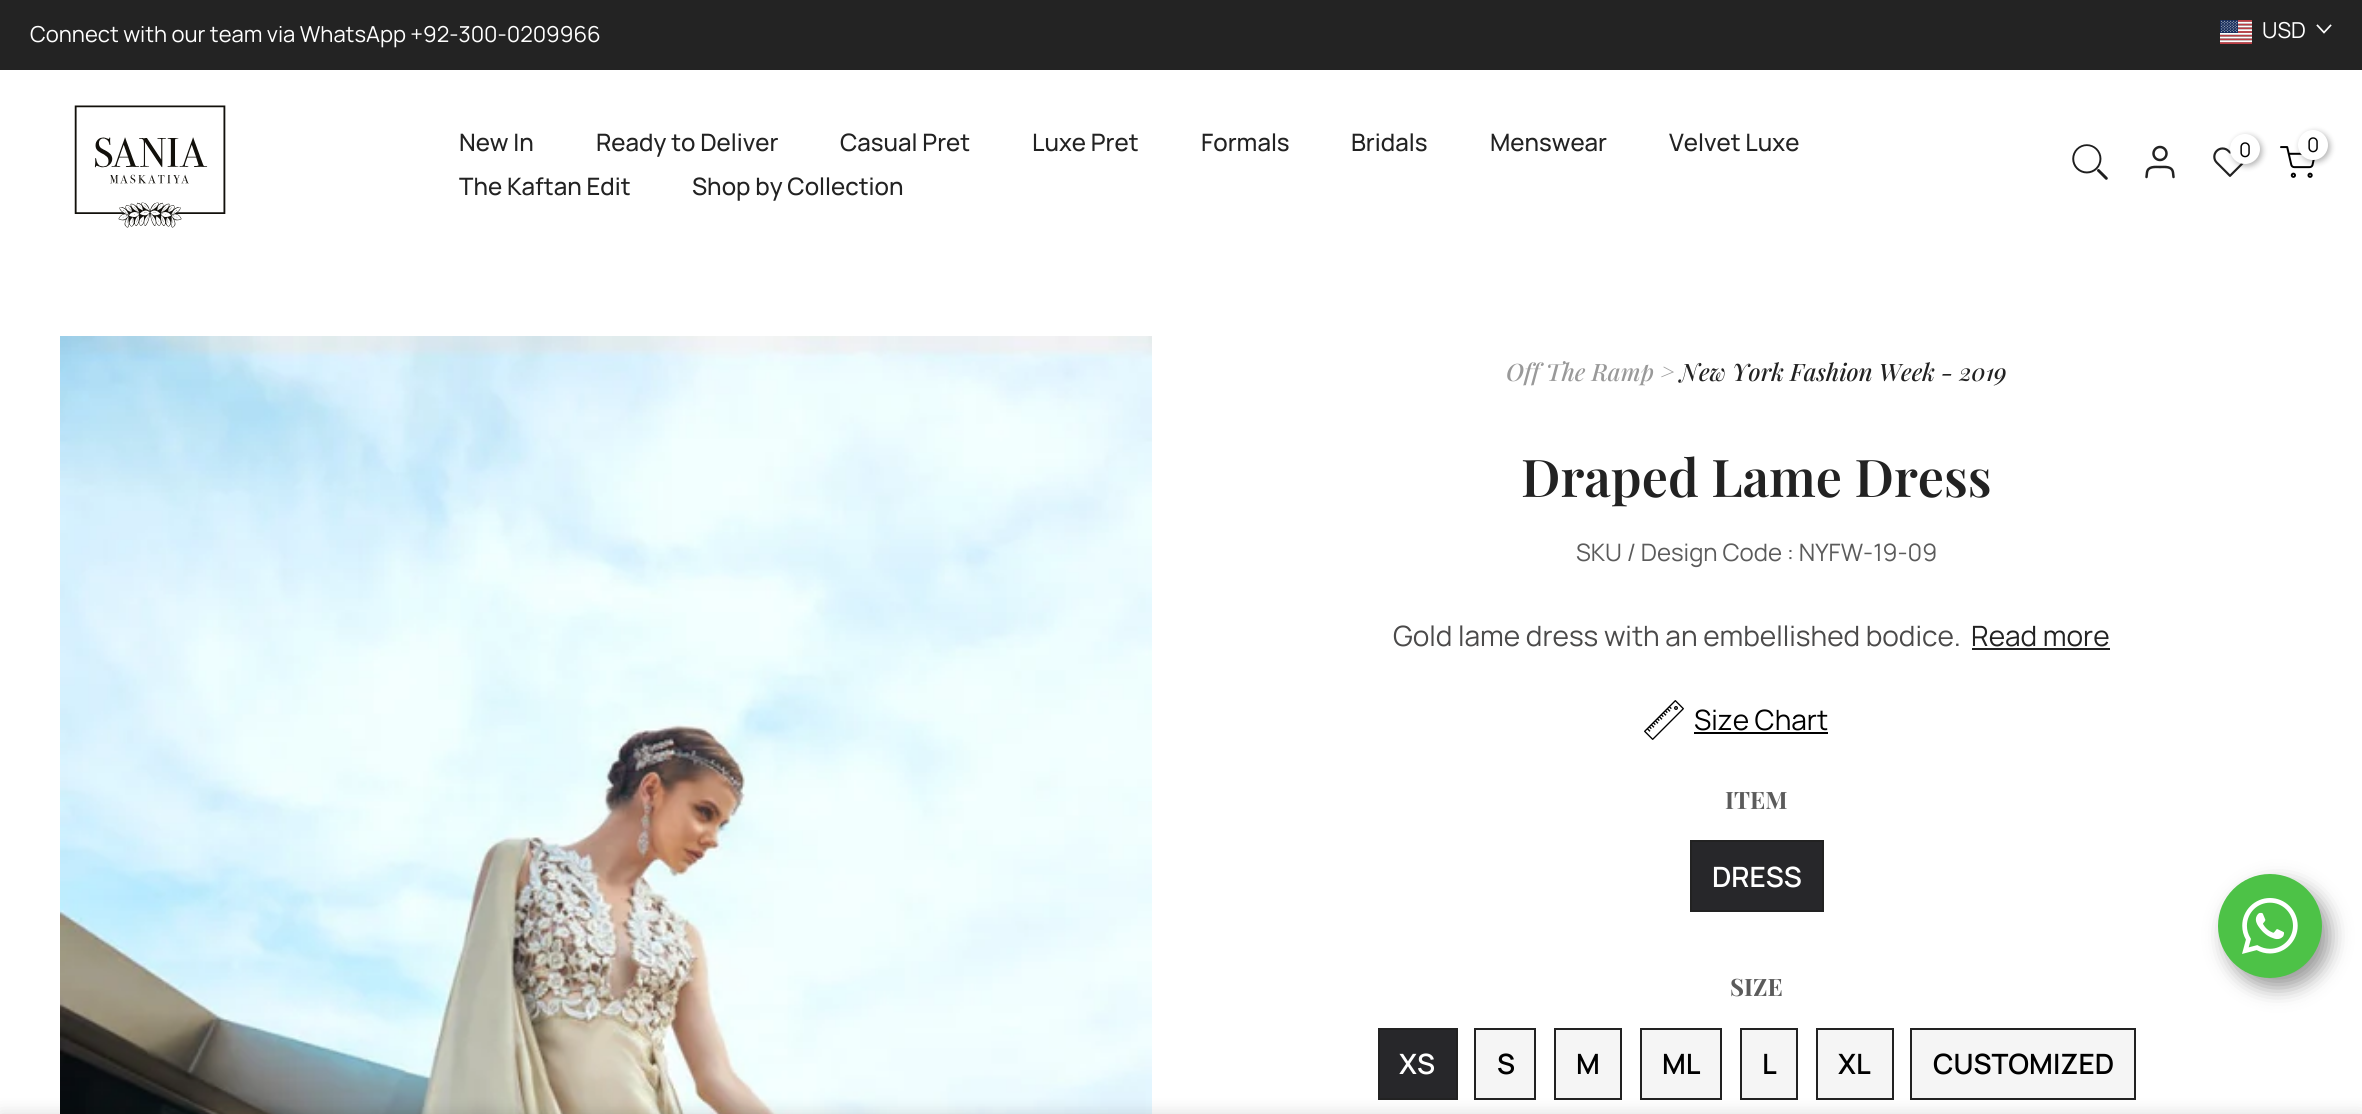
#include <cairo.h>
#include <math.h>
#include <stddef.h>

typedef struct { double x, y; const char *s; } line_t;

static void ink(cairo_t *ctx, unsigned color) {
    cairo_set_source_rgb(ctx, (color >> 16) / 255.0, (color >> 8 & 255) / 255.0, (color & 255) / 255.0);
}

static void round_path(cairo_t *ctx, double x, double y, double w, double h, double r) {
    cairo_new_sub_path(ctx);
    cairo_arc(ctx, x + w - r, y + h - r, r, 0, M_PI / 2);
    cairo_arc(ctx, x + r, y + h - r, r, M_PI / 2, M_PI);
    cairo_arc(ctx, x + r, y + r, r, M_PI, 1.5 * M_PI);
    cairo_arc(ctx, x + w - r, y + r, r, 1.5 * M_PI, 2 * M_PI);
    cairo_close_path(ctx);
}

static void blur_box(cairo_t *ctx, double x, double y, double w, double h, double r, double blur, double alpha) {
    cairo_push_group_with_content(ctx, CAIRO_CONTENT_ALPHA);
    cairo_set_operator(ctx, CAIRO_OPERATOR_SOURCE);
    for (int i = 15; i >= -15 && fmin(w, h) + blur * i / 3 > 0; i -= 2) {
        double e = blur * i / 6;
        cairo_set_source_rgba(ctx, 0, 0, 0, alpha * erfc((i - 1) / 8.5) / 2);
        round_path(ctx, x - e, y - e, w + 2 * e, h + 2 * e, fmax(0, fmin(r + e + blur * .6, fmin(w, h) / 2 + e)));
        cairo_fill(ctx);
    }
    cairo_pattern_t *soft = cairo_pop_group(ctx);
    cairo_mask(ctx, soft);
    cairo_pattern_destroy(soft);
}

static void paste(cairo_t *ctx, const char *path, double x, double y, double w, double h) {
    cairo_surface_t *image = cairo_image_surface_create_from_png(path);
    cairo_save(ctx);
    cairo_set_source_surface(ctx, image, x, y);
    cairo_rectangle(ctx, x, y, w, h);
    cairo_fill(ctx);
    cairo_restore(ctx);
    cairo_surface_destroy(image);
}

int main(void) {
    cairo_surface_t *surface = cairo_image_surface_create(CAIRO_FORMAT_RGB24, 2362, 1114);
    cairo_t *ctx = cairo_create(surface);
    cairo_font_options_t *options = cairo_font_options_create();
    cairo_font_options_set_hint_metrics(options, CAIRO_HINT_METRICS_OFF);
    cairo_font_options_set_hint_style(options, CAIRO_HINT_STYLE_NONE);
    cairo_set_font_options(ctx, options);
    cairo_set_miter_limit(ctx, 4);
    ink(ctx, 0xFFFFFF);
    cairo_paint(ctx);
    ink(ctx, 0x232323);
    cairo_rectangle(ctx, 0, 0, 2362, 70);
    cairo_fill(ctx);
    cairo_select_font_face(ctx, "Manrope", CAIRO_FONT_SLANT_NORMAL, CAIRO_FONT_WEIGHT_NORMAL);
    cairo_set_font_size(ctx, 22);
    ink(ctx, 0xFFFFFF);
    cairo_move_to(ctx, 30, 42);
    cairo_show_text(ctx, "Connect with our team via WhatsApp +92-300-0209966");
    paste(ctx, "media/1.png", 2220, 20, 32, 24);
    cairo_move_to(ctx, 2262, 38);
    cairo_show_text(ctx, "USD");
    cairo_new_path(ctx);
    cairo_move_to(ctx, 2330.5, 25.5);
    cairo_line_to(ctx, 2324, 32.5);
    cairo_line_to(ctx, 2317.5, 25.5);
    cairo_set_line_width(ctx, 1.7);
    cairo_set_line_cap(ctx, CAIRO_LINE_CAP_SQUARE);
    cairo_stroke(ctx);
    paste(ctx, "media/2.png", 74, 105, 152, 123);
    cairo_select_font_face(ctx, "Manrope Medium", CAIRO_FONT_SLANT_NORMAL, CAIRO_FONT_WEIGHT_NORMAL);
    cairo_set_font_size(ctx, 24);
    ink(ctx, 0x222222);
    {
        static const line_t items[] = {
            {459, 151, "New In"},
            {596, 151, "Ready to Deliver"},
            {840, 151, "Casual Pret"},
            {1032, 151, "Luxe Pret"},
            {1201, 151, "Formals"},
            {1351, 151, "Bridals"},
            {1490, 151, "Menswear"},
            {1669, 151, "Velvet Luxe"},
            {459, 195, "The Kaftan Edit"},
            {692, 195, "Shop by Collection"},
        };
        for (size_t i = 0; i < sizeof items / sizeof *items; i++) {
            cairo_move_to(ctx, items[i].x, items[i].y);
            cairo_show_text(ctx, items[i].s);
        }
    }
    paste(ctx, "media/3.png", 2072, 144, 36, 36);
    cairo_arc(ctx, 2160, 153.5, 6.5, 0, 2 * M_PI);
    cairo_set_line_width(ctx, 2.5);
    cairo_set_line_cap(ctx, CAIRO_LINE_CAP_BUTT);
    cairo_stroke(ctx);
    cairo_new_path(ctx);
    cairo_move_to(ctx, 2173.5, 177);
    cairo_line_to(ctx, 2173, 172.5);
    cairo_curve_to(ctx, 2172, 166, 2165, 167, 2160, 167);
    cairo_curve_to(ctx, 2155, 167, 2148, 166, 2147, 172.5);
    cairo_line_to(ctx, 2146.5, 177);
    cairo_set_line_cap(ctx, CAIRO_LINE_CAP_ROUND);
    cairo_set_line_join(ctx, CAIRO_LINE_JOIN_ROUND);
    cairo_stroke(ctx);
    paste(ctx, "media/4.png", 2213, 147, 32, 30);
    ink(ctx, 0x000000);
    blur_box(ctx, 2232, 136, 30, 30, 15, 3, 0.3);
    ink(ctx, 0xFFFFFF);
    cairo_arc(ctx, 2245, 149, 15, 0, 2 * M_PI);
    cairo_fill(ctx);
    cairo_select_font_face(ctx, "Manrope", CAIRO_FONT_SLANT_NORMAL, CAIRO_FONT_WEIGHT_NORMAL);
    cairo_set_font_size(ctx, 20);
    ink(ctx, 0x000000);
    cairo_move_to(ctx, 2239, 157);
    cairo_show_text(ctx, "0");
    paste(ctx, "media/5.png", 2280, 146, 35, 32);
    ink(ctx, 0x000000);
    blur_box(ctx, 2300, 132, 30, 30, 15, 3, 0.3);
    ink(ctx, 0xFFFFFF);
    cairo_arc(ctx, 2313, 145, 15, 0, 2 * M_PI);
    cairo_fill(ctx);
    ink(ctx, 0x000000);
    cairo_move_to(ctx, 2307, 152);
    cairo_show_text(ctx, "0");
    paste(ctx, "media/6.png", 60, 336, 1092, 778);
    cairo_select_font_face(ctx, "Playfair Display Medium", CAIRO_FONT_SLANT_ITALIC, CAIRO_FONT_WEIGHT_NORMAL);
    cairo_set_font_size(ctx, 24);
    ink(ctx, 0x999999);
    cairo_move_to(ctx, 1506, 381);
    cairo_show_text(ctx, "Off The Ramp >");
    ink(ctx, 0x222222);
    cairo_move_to(ctx, 1680, 381);
    cairo_show_text(ctx, "New York Fashion Week - 2019");
    cairo_select_font_face(ctx, "Playfair Display SemiBold", CAIRO_FONT_SLANT_NORMAL, CAIRO_FONT_WEIGHT_NORMAL);
    cairo_set_font_size(ctx, 52);
    cairo_move_to(ctx, 1521, 497);
    cairo_show_text(ctx, "Draped Lame Dress");
    cairo_select_font_face(ctx, "Manrope", CAIRO_FONT_SLANT_NORMAL, CAIRO_FONT_WEIGHT_NORMAL);
    cairo_set_font_size(ctx, 24);
    ink(ctx, 0x5B5B5B);
    cairo_move_to(ctx, 1576, 561);
    cairo_show_text(ctx, "SKU / Design Code : NYFW-19-09");
    cairo_set_font_size(ctx, 28);
    ink(ctx, 0x4B4A4A);
    cairo_move_to(ctx, 1393, 646);
    cairo_show_text(ctx, "Gold lame dress with an embellished bodice.");
    ink(ctx, 0x222222);
    cairo_move_to(ctx, 1971, 646);
    cairo_show_text(ctx, "Read more");
    cairo_rectangle(ctx, 1972, 648, 138, 2);
    cairo_fill(ctx);
    paste(ctx, "media/7.png", 1644, 700, 40, 40);
    ink(ctx, 0x000000);
    cairo_move_to(ctx, 1694, 730);
    cairo_show_text(ctx, "Size Chart");
    cairo_rectangle(ctx, 1694, 732, 134, 2);
    cairo_fill(ctx);
    cairo_select_font_face(ctx, "Playfair Display", CAIRO_FONT_SLANT_NORMAL, CAIRO_FONT_WEIGHT_BOLD);
    cairo_set_font_size(ctx, 24);
    ink(ctx, 0x5B5B5B);
    cairo_move_to(ctx, 1725, 809);
    cairo_show_text(ctx, "ITEM");
    ink(ctx, 0x27272A);
    cairo_rectangle(ctx, 1691, 841, 132, 70);
    cairo_fill_preserve(ctx);
    ink(ctx, 0x222222);
    cairo_set_line_width(ctx, 2);
    cairo_set_line_cap(ctx, CAIRO_LINE_CAP_BUTT);
    cairo_set_line_join(ctx, CAIRO_LINE_JOIN_MITER);
    cairo_stroke(ctx);
    cairo_select_font_face(ctx, "Manrope SemiBold", CAIRO_FONT_SLANT_NORMAL, CAIRO_FONT_WEIGHT_NORMAL);
    cairo_set_font_size(ctx, 28);
    ink(ctx, 0xFFFFFF);
    cairo_move_to(ctx, 1712, 887);
    cairo_show_text(ctx, "DRESS");
    cairo_select_font_face(ctx, "Playfair Display", CAIRO_FONT_SLANT_NORMAL, CAIRO_FONT_WEIGHT_BOLD);
    cairo_set_font_size(ctx, 24);
    ink(ctx, 0x5B5B5B);
    cairo_move_to(ctx, 1730, 996);
    cairo_show_text(ctx, "SIZE");
    ink(ctx, 0x27272A);
    cairo_rectangle(ctx, 1379, 1029, 78, 70);
    cairo_fill_preserve(ctx);
    ink(ctx, 0x222222);
    cairo_stroke(ctx);
    cairo_select_font_face(ctx, "Manrope SemiBold", CAIRO_FONT_SLANT_NORMAL, CAIRO_FONT_WEIGHT_NORMAL);
    cairo_set_font_size(ctx, 28);
    ink(ctx, 0xFFFFFF);
    cairo_move_to(ctx, 1399, 1074);
    cairo_show_text(ctx, "XS");
    ink(ctx, 0xF5F5F5);
    cairo_rectangle(ctx, 1475, 1029, 60, 70);
    cairo_fill_preserve(ctx);
    ink(ctx, 0x222222);
    cairo_stroke(ctx);
    ink(ctx, 0x000000);
    cairo_move_to(ctx, 1497, 1074);
    cairo_show_text(ctx, "S");
    ink(ctx, 0xF5F5F5);
    cairo_rectangle(ctx, 1555, 1029, 66, 70);
    cairo_fill_preserve(ctx);
    ink(ctx, 0x222222);
    cairo_stroke(ctx);
    ink(ctx, 0x000000);
    cairo_move_to(ctx, 1576, 1074);
    cairo_show_text(ctx, "M");
    ink(ctx, 0xF5F5F5);
    cairo_rectangle(ctx, 1641, 1029, 80, 70);
    cairo_fill_preserve(ctx);
    ink(ctx, 0x222222);
    cairo_stroke(ctx);
    ink(ctx, 0x000000);
    cairo_move_to(ctx, 1662, 1074);
    cairo_show_text(ctx, "ML");
    ink(ctx, 0xF5F5F5);
    cairo_rectangle(ctx, 1741, 1029, 56, 70);
    cairo_fill_preserve(ctx);
    ink(ctx, 0x222222);
    cairo_stroke(ctx);
    ink(ctx, 0x000000);
    cairo_move_to(ctx, 1762, 1074);
    cairo_show_text(ctx, "L");
    ink(ctx, 0xF5F5F5);
    cairo_rectangle(ctx, 1817, 1029, 76, 70);
    cairo_fill_preserve(ctx);
    ink(ctx, 0x222222);
    cairo_stroke(ctx);
    ink(ctx, 0x000000);
    cairo_move_to(ctx, 1838, 1074);
    cairo_show_text(ctx, "XL");
    ink(ctx, 0xF5F5F5);
    cairo_rectangle(ctx, 1911, 1029, 224, 70);
    cairo_fill_preserve(ctx);
    ink(ctx, 0x222222);
    cairo_stroke(ctx);
    ink(ctx, 0x000000);
    cairo_move_to(ctx, 1933, 1074);
    cairo_show_text(ctx, "CUSTOMIZED");
    ink(ctx, 0x000000);
    blur_box(ctx, 2226, 884, 104, 104, 52, 10, 0.4);
    ink(ctx, 0x4DC247);
    cairo_arc(ctx, 2270, 926, 52, 0, 2 * M_PI);
    cairo_fill(ctx);
    paste(ctx, "media/8.png", 2242, 898, 56, 56);
    ink(ctx, 0x000000);
    blur_box(ctx, 0, 1114, 2362, 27, 0, 9, 0.14);
    cairo_surface_write_to_png(surface, "image.png");
    cairo_font_options_destroy(options);
    cairo_destroy(ctx);
    cairo_surface_destroy(surface);
    return 0;
}
